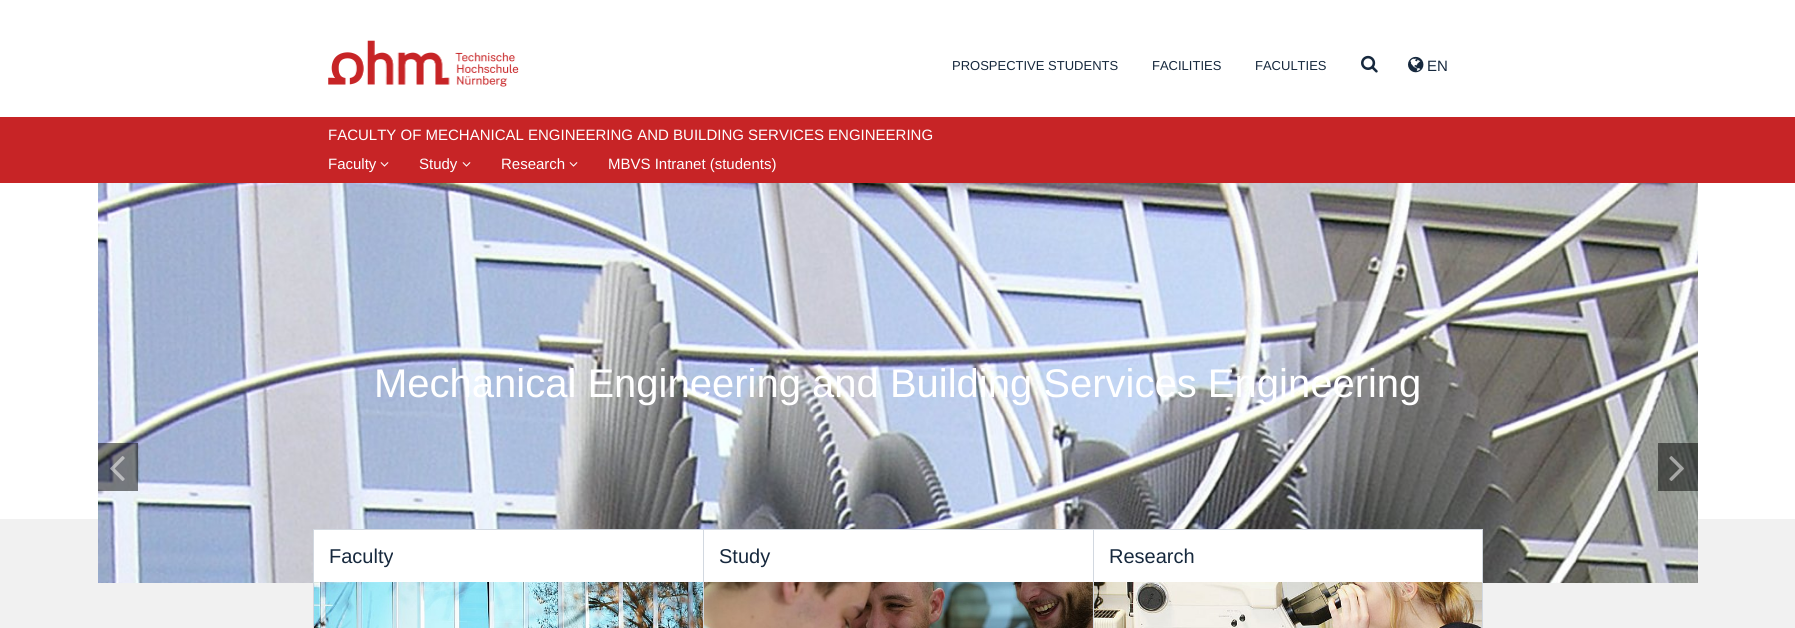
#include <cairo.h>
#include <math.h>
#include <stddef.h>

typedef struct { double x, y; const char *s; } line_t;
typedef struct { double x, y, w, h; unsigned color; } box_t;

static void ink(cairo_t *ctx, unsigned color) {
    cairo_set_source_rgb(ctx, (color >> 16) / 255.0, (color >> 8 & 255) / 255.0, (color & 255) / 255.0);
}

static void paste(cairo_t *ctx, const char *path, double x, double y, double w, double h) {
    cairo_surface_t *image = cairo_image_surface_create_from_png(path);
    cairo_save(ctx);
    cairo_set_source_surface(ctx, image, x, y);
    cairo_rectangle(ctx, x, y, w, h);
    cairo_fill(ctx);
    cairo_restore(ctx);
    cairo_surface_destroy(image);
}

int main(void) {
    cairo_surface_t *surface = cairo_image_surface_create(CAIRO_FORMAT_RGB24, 1795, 628);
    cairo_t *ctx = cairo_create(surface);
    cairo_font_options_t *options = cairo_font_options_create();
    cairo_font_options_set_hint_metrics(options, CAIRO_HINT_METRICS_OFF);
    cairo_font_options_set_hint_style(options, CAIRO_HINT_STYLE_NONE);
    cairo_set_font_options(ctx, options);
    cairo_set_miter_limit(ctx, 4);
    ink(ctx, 0xFFFFFF);
    cairo_paint(ctx);
    paste(ctx, "media/1.png", 328, 40, 191, 47);
    cairo_select_font_face(ctx, "Liberation Sans", CAIRO_FONT_SLANT_NORMAL, CAIRO_FONT_WEIGHT_NORMAL);
    cairo_set_font_size(ctx, 13);
    ink(ctx, 0x16283D);
    {
        static const line_t items[] = {
            {952, 70, "PROSPECTIVE STUDENTS"},
            {1152, 70, "FACILITIES"},
            {1255, 70, "FACULTIES"},
        };
        for (size_t i = 0; i < sizeof items / sizeof *items; i++) {
            cairo_move_to(ctx, items[i].x, items[i].y);
            cairo_show_text(ctx, items[i].s);
        }
    }
    paste(ctx, "media/2.png", 1361, 55, 17, 18);
    paste(ctx, "media/3.png", 1408, 56, 16, 17);
    cairo_set_font_size(ctx, 15);
    cairo_move_to(ctx, 1427, 71);
    cairo_show_text(ctx, "EN");
    ink(ctx, 0xC72426);
    cairo_rectangle(ctx, 0, 117, 1795, 66);
    cairo_fill(ctx);
    ink(ctx, 0xFFFFFF);
    cairo_move_to(ctx, 328, 140);
    cairo_show_text(ctx, "FACULTY OF MECHANICAL ENGINEERING AND BUILDING SERVICES ENGINEERING");
    cairo_move_to(ctx, 328, 169);
    cairo_show_text(ctx, "Faculty");
    paste(ctx, "media/4.png", 380, 162, 9, 5);
    cairo_move_to(ctx, 419, 169);
    cairo_show_text(ctx, "Study");
    paste(ctx, "media/4.png", 462, 162, 9, 5);
    cairo_move_to(ctx, 501, 169);
    cairo_show_text(ctx, "Research");
    paste(ctx, "media/4.png", 569, 162, 9, 5);
    cairo_move_to(ctx, 608, 169);
    cairo_show_text(ctx, "MBVS Intranet (students)");
    ink(ctx, 0xF1F1F1);
    cairo_rectangle(ctx, 0, 519, 1795, 109);
    cairo_fill(ctx);
    paste(ctx, "media/5.png", 98, 183, 1600, 400);
    cairo_set_font_size(ctx, 40);
    ink(ctx, 0xFFFFFF);
    cairo_move_to(ctx, 374, 397);
    cairo_show_text(ctx, "Mechanical Engineering and Building Services Engineering");
    cairo_set_source_rgba(ctx, 0, 0, 0, 0.5);
    cairo_rectangle(ctx, 98, 443, 40, 48);
    cairo_fill(ctx);
    paste(ctx, "media/6.png", 110, 456, 15, 25);
    cairo_rectangle(ctx, 1658, 443, 40, 48);
    cairo_fill(ctx);
    paste(ctx, "media/7.png", 1669, 456, 15, 25);
    ink(ctx, 0xFFFFFF);
    cairo_rectangle(ctx, 314, 530, 389, 52);
    cairo_fill(ctx);
    ink(ctx, 0xD2D8E0);
    cairo_set_fill_rule(ctx, CAIRO_FILL_RULE_EVEN_ODD);
    cairo_new_path(ctx);
    cairo_move_to(ctx, 313, 529);
    cairo_line_to(ctx, 703, 529);
    cairo_line_to(ctx, 703, 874);
    cairo_line_to(ctx, 317, 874);
    cairo_curve_to(ctx, 315, 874, 313, 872, 313, 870);
    cairo_close_path(ctx);
    cairo_move_to(ctx, 314, 530);
    cairo_line_to(ctx, 703, 530);
    cairo_line_to(ctx, 703, 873);
    cairo_line_to(ctx, 317, 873);
    cairo_curve_to(ctx, 315, 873, 314, 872, 314, 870);
    cairo_close_path(ctx);
    cairo_fill(ctx);
    cairo_set_font_size(ctx, 20);
    ink(ctx, 0x16283D);
    cairo_move_to(ctx, 329, 563);
    cairo_show_text(ctx, "Faculty");
    paste(ctx, "media/8.png", 314, 582, 389, 46);
    {
        static const box_t items[] = {
            {704, 530, 389, 52, 0xFFFFFF},
            {703, 529, 390, 1, 0xD2D8E0},
            {703, 529, 1, 99, 0xD2D8E0},
        };
        for (size_t i = 0; i < sizeof items / sizeof *items; i++) {
            ink(ctx, items[i].color);
            cairo_rectangle(ctx, items[i].x, items[i].y, items[i].w, items[i].h);
            cairo_fill(ctx);
        }
    }
    ink(ctx, 0x16283D);
    cairo_move_to(ctx, 719, 563);
    cairo_show_text(ctx, "Study");
    paste(ctx, "media/9.png", 704, 582, 389, 46);
    ink(ctx, 0xFFFFFF);
    cairo_rectangle(ctx, 1094, 530, 388, 52);
    cairo_fill(ctx);
    cairo_rectangle(ctx, 1093.5, 529.5, 389, 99);
    ink(ctx, 0xD2D8E0);
    cairo_set_line_width(ctx, 1);
    cairo_stroke(ctx);
    ink(ctx, 0x16283D);
    cairo_move_to(ctx, 1109, 563);
    cairo_show_text(ctx, "Research");
    paste(ctx, "media/10.png", 1094, 582, 388, 46);
    cairo_surface_write_to_png(surface, "image.png");
    cairo_font_options_destroy(options);
    cairo_destroy(ctx);
    cairo_surface_destroy(surface);
    return 0;
}
